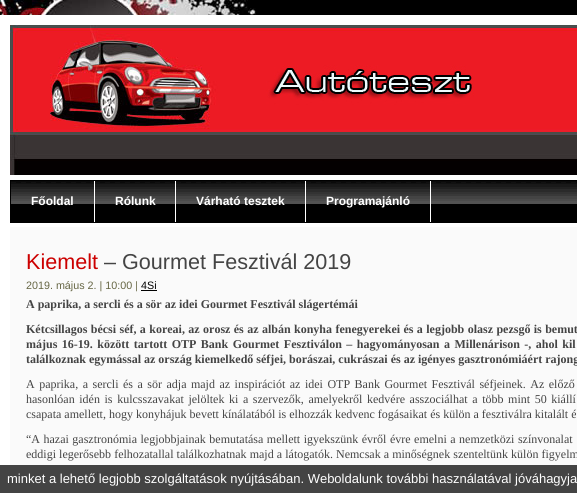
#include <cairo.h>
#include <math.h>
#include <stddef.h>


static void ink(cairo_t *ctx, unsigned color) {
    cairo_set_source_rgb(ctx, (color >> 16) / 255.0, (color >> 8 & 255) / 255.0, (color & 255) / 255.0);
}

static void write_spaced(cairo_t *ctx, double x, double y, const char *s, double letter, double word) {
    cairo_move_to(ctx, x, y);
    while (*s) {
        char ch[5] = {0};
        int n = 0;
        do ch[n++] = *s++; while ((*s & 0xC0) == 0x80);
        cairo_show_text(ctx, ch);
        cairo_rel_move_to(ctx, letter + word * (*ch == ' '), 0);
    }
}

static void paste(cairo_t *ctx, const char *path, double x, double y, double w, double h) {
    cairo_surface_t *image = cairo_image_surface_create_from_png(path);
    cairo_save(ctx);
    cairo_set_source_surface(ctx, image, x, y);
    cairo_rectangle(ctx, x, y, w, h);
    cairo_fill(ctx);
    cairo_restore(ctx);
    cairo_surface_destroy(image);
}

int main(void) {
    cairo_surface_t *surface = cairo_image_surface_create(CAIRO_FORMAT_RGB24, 577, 493);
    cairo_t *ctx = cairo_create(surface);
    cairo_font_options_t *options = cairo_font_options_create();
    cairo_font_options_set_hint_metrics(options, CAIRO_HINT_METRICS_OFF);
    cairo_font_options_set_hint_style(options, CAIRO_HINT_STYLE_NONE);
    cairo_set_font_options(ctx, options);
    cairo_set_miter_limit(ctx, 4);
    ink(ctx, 0x000000);
    cairo_paint(ctx);
    paste(ctx, "media/1.png", 0, 0, 296, 15);
    ink(ctx, 0xFFFFFF);
    cairo_rectangle(ctx, 0, 15, 577, 165);
    cairo_fill(ctx);
    paste(ctx, "media/2.png", 10, 25, 567, 150);
    cairo_rectangle(ctx, 0, 180, 10, 285);
    cairo_fill(ctx);
    paste(ctx, "media/3.png", 431, 181, 146, 41);
    paste(ctx, "media/4.png", 11, 181, 83, 23);
    cairo_rectangle(ctx, 94, 181, 1, 41);
    cairo_fill(ctx);
    cairo_select_font_face(ctx, "Liberation Sans", CAIRO_FONT_SLANT_NORMAL, CAIRO_FONT_WEIGHT_BOLD);
    cairo_set_font_size(ctx, 12);
    cairo_move_to(ctx, 31, 205);
    cairo_show_text(ctx, "Főoldal");
    paste(ctx, "media/5.png", 95, 181, 80, 23);
    cairo_rectangle(ctx, 175, 181, 1, 41);
    cairo_fill(ctx);
    cairo_move_to(ctx, 115, 205);
    cairo_show_text(ctx, "Rólunk");
    paste(ctx, "media/6.png", 176, 181, 129, 23);
    cairo_rectangle(ctx, 305, 181, 1, 41);
    cairo_fill(ctx);
    cairo_move_to(ctx, 196, 205);
    cairo_show_text(ctx, "Várható tesztek");
    paste(ctx, "media/7.png", 306, 181, 124, 23);
    cairo_rectangle(ctx, 430, 181, 1, 41);
    cairo_fill(ctx);
    cairo_move_to(ctx, 326, 205);
    cairo_show_text(ctx, "Programajánló");
    ink(ctx, 0xFAFAFA);
    cairo_rectangle(ctx, 10, 227, 567, 238);
    cairo_fill(ctx);
    ink(ctx, 0xFFFFFF);
    cairo_rectangle(ctx, 10, 223, 567, 4);
    cairo_fill(ctx);
    cairo_select_font_face(ctx, "Liberation Sans", CAIRO_FONT_SLANT_NORMAL, CAIRO_FONT_WEIGHT_NORMAL);
    cairo_set_font_size(ctx, 21.6);
    ink(ctx, 0xCC0000);
    cairo_move_to(ctx, 26, 269);
    cairo_show_text(ctx, "Kiemelt");
    ink(ctx, 0x444444);
    cairo_move_to(ctx, 104, 269);
    cairo_show_text(ctx, "– Gourmet Fesztivál 2019");
    cairo_set_font_size(ctx, 10.75);
    ink(ctx, 0x666644);
    cairo_move_to(ctx, 26, 289);
    cairo_show_text(ctx, "2019. május 2. | 10:00 |");
    ink(ctx, 0x000000);
    cairo_move_to(ctx, 141, 289);
    cairo_show_text(ctx, "4Si");
    cairo_rectangle(ctx, 141, 290, 16, 1);
    cairo_fill(ctx);
    cairo_select_font_face(ctx, "Liberation Serif", CAIRO_FONT_SLANT_NORMAL, CAIRO_FONT_WEIGHT_BOLD);
    cairo_set_font_size(ctx, 12);
    ink(ctx, 0x444444);
    cairo_move_to(ctx, 26, 308);
    cairo_show_text(ctx, "A paprika, a sercli és a sör az idei Gourmet Fesztivál slágertémái");
    write_spaced(ctx, 26, 333, "Kétcsillagos bécsi séf, a koreai, az orosz és az albán konyha fenegyerekei és a legjobb olasz pezsgő is bemut", 0, 0.4);
    write_spaced(ctx, 26, 348, "május 16-19. között tartott OTP Bank Gourmet Fesztiválon – hagyományosan a Millenárison -, ahol kil", 0, 1.5);
    cairo_move_to(ctx, 26, 363);
    cairo_show_text(ctx, "találkoznak egymással az ország kiemelkedő séfjei, borászai, cukrászai és az igényes gasztronómiáért rajong");
    cairo_select_font_face(ctx, "Liberation Serif", CAIRO_FONT_SLANT_NORMAL, CAIRO_FONT_WEIGHT_NORMAL);
    write_spaced(ctx, 26, 388, "A paprika, a sercli és a sör adja majd az inspirációt az idei OTP Bank Gourmet Fesztivál séfjeinek. Az előző", 0, 1.5);
    write_spaced(ctx, 26, 403, "hasonlóan idén is kulcsszavakat jelöltek ki a szervezők, amelyekről kedvére asszociálhat a több mint 50 kiállí", 0, 1.6);
    cairo_move_to(ctx, 26, 418);
    cairo_show_text(ctx, "csapata amellett, hogy konyhájuk bevett kínálatából is elhozzák kedvenc fogásaikat és külön a fesztiválra kitalált é");
    write_spaced(ctx, 26, 443, "“A hazai gasztronómia legjobbjainak bemutatása mellett igyekszünk évről évre emelni a nemzetközi színvonalat", 0, 0.5);
    write_spaced(ctx, 26, 458, "eddigi legerősebb felhozatallal találkozhatnak majd a látogatók. Nemcsak a minőségnek szenteltünk külön figyelm", 0, 0.1);
    cairo_rectangle(ctx, 0, 465, 577, 28);
    cairo_fill(ctx);
    cairo_select_font_face(ctx, "Liberation Sans", CAIRO_FONT_SLANT_NORMAL, CAIRO_FONT_WEIGHT_NORMAL);
    cairo_set_font_size(ctx, 13);
    ink(ctx, 0xFFFFFF);
    cairo_move_to(ctx, 7, 483);
    cairo_show_text(ctx, "minket a lehető legjobb szolgáltatások nyújtásában. Weboldalunk további használatával jóváhagyja");
    cairo_surface_write_to_png(surface, "image.png");
    cairo_font_options_destroy(options);
    cairo_destroy(ctx);
    cairo_surface_destroy(surface);
    return 0;
}
